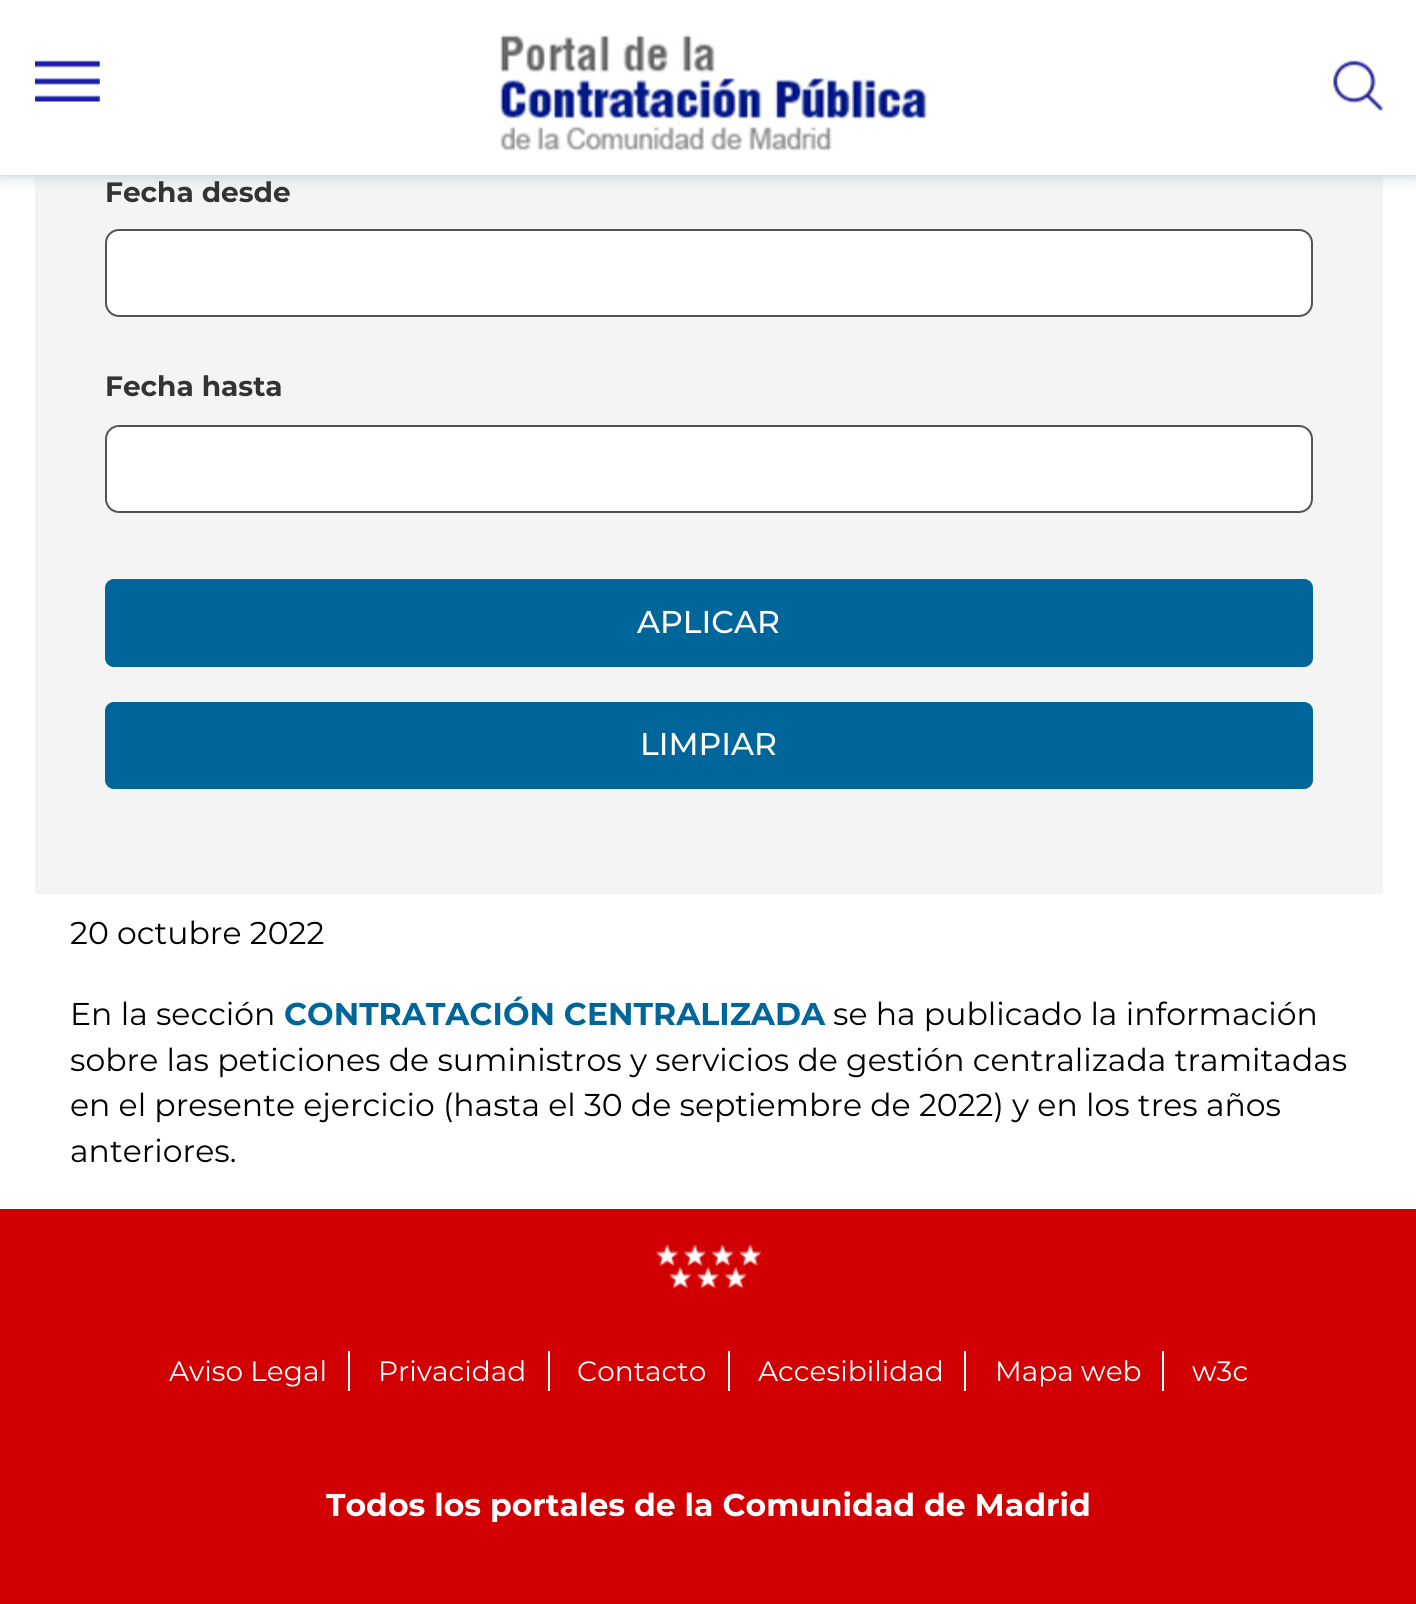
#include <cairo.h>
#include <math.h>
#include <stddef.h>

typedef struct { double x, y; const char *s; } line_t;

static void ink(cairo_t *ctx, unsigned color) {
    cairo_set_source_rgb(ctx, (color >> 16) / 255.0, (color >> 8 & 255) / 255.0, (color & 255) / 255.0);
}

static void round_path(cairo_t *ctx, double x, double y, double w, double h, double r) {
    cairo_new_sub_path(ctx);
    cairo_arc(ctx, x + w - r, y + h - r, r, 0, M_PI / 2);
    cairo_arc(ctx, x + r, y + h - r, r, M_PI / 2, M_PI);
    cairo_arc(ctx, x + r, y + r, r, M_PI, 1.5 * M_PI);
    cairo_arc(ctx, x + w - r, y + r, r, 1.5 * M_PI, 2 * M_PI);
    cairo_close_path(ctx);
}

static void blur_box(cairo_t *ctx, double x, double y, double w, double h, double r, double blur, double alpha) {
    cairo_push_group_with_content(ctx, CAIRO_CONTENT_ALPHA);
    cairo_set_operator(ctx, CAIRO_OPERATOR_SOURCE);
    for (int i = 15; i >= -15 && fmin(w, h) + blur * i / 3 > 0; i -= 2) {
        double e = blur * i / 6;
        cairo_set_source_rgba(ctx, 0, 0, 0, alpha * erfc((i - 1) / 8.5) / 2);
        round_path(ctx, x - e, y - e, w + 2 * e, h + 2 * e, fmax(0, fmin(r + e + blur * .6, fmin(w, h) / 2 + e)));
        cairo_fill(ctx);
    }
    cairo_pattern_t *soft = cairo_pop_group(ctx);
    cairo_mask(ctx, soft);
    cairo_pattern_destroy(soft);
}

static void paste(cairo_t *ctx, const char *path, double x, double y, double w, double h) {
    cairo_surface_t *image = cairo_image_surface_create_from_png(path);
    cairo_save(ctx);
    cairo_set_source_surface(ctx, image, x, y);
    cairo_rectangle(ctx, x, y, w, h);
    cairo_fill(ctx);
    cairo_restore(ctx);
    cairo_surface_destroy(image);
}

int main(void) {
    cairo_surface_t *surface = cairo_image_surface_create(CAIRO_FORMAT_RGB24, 1416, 1604);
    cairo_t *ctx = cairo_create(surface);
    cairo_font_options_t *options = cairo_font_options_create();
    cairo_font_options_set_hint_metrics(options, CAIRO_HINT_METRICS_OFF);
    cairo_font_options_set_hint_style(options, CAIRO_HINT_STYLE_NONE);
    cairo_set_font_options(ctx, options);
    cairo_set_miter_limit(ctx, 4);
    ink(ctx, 0xFFFFFF);
    cairo_paint(ctx);
    ink(ctx, 0xF4F4F4);
    cairo_rectangle(ctx, 35, 175, 1348, 719);
    cairo_fill(ctx);
    ink(ctx, 0xB3C9D2);
    blur_box(ctx, 0, 0, 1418, 175, 0, 8, 1);
    ink(ctx, 0xFFFFFF);
    cairo_rectangle(ctx, 0, 0, 1416, 175);
    cairo_fill(ctx);
    paste(ctx, "media/1.png", 35, 60, 65, 42);
    paste(ctx, "media/2.png", 500, 34, 427, 117);
    paste(ctx, "media/3.png", 1333, 60, 50, 51);
    cairo_select_font_face(ctx, "Montserrat", CAIRO_FONT_SLANT_NORMAL, CAIRO_FONT_WEIGHT_BOLD);
    cairo_set_font_size(ctx, 28);
    ink(ctx, 0x333333);
    cairo_move_to(ctx, 105, 202);
    cairo_show_text(ctx, "Fecha desde");
    ink(ctx, 0xFFFFFF);
    round_path(ctx, 106, 230, 1206, 86, 13);
    cairo_fill_preserve(ctx);
    ink(ctx, 0x535353);
    cairo_stroke(ctx);
    ink(ctx, 0x333333);
    cairo_move_to(ctx, 105, 396);
    cairo_show_text(ctx, "Fecha hasta");
    ink(ctx, 0xFFFFFF);
    round_path(ctx, 106, 426, 1206, 86, 13);
    cairo_fill_preserve(ctx);
    ink(ctx, 0x535353);
    cairo_stroke(ctx);
    ink(ctx, 0x006699);
    round_path(ctx, 105, 579, 1208, 88, 9);
    cairo_fill(ctx);
    cairo_select_font_face(ctx, "Montserrat Medium", CAIRO_FONT_SLANT_NORMAL, CAIRO_FONT_WEIGHT_NORMAL);
    cairo_set_font_size(ctx, 31.5);
    ink(ctx, 0xFFFFFF);
    cairo_move_to(ctx, 637, 633);
    cairo_show_text(ctx, "APLICAR");
    ink(ctx, 0x006699);
    round_path(ctx, 105, 702, 1208, 87, 9);
    cairo_fill(ctx);
    ink(ctx, 0xFFFFFF);
    cairo_move_to(ctx, 640, 755);
    cairo_show_text(ctx, "LIMPIAR");
    cairo_select_font_face(ctx, "Montserrat", CAIRO_FONT_SLANT_NORMAL, CAIRO_FONT_WEIGHT_NORMAL);
    ink(ctx, 0x000000);
    cairo_move_to(ctx, 70, 944);
    cairo_show_text(ctx, "20 octubre 2022");
    cairo_move_to(ctx, 70, 1025);
    cairo_show_text(ctx, "En la sección");
    cairo_select_font_face(ctx, "Montserrat", CAIRO_FONT_SLANT_NORMAL, CAIRO_FONT_WEIGHT_BOLD);
    ink(ctx, 0x006699);
    cairo_move_to(ctx, 284, 1025);
    cairo_show_text(ctx, "CONTRATACIÓN CENTRALIZADA");
    cairo_select_font_face(ctx, "Montserrat", CAIRO_FONT_SLANT_NORMAL, CAIRO_FONT_WEIGHT_NORMAL);
    ink(ctx, 0x000000);
    {
        static const line_t items[] = {
            {833, 1025, "se ha publicado la información"},
            {70, 1071, "sobre las peticiones de suministros y servicios de gestión centralizada tramitadas"},
            {70, 1116, "en el presente ejercicio (hasta el 30 de septiembre de 2022) y en los tres años"},
            {70, 1162, "anteriores."},
        };
        for (size_t i = 0; i < sizeof items / sizeof *items; i++) {
            cairo_move_to(ctx, items[i].x, items[i].y);
            cairo_show_text(ctx, items[i].s);
        }
    }
    ink(ctx, 0xD10002);
    cairo_rectangle(ctx, 0, 1209, 1416, 395);
    cairo_fill(ctx);
    paste(ctx, "media/4.png", 656, 1244, 106, 45);
    ink(ctx, 0xFFFFFF);
    cairo_rectangle(ctx, 348, 1351, 2, 40);
    cairo_fill(ctx);
    cairo_set_font_size(ctx, 28);
    cairo_move_to(ctx, 169, 1381);
    cairo_show_text(ctx, "Aviso Legal");
    cairo_rectangle(ctx, 548, 1351, 2, 40);
    cairo_fill(ctx);
    cairo_move_to(ctx, 378, 1381);
    cairo_show_text(ctx, "Privacidad");
    cairo_rectangle(ctx, 728, 1351, 2, 40);
    cairo_fill(ctx);
    cairo_move_to(ctx, 577, 1381);
    cairo_show_text(ctx, "Contacto");
    cairo_rectangle(ctx, 964, 1351, 2, 40);
    cairo_fill(ctx);
    cairo_move_to(ctx, 758, 1381);
    cairo_show_text(ctx, "Accesibilidad");
    cairo_rectangle(ctx, 1162, 1351, 2, 40);
    cairo_fill(ctx);
    cairo_move_to(ctx, 995, 1381);
    cairo_show_text(ctx, "Mapa web");
    cairo_move_to(ctx, 1192, 1381);
    cairo_show_text(ctx, "w3c");
    cairo_select_font_face(ctx, "Montserrat", CAIRO_FONT_SLANT_NORMAL, CAIRO_FONT_WEIGHT_BOLD);
    cairo_set_font_size(ctx, 31.5);
    cairo_move_to(ctx, 326, 1516);
    cairo_show_text(ctx, "Todos los portales de la Comunidad de Madrid");
    cairo_surface_write_to_png(surface, "image.png");
    cairo_font_options_destroy(options);
    cairo_destroy(ctx);
    cairo_surface_destroy(surface);
    return 0;
}
